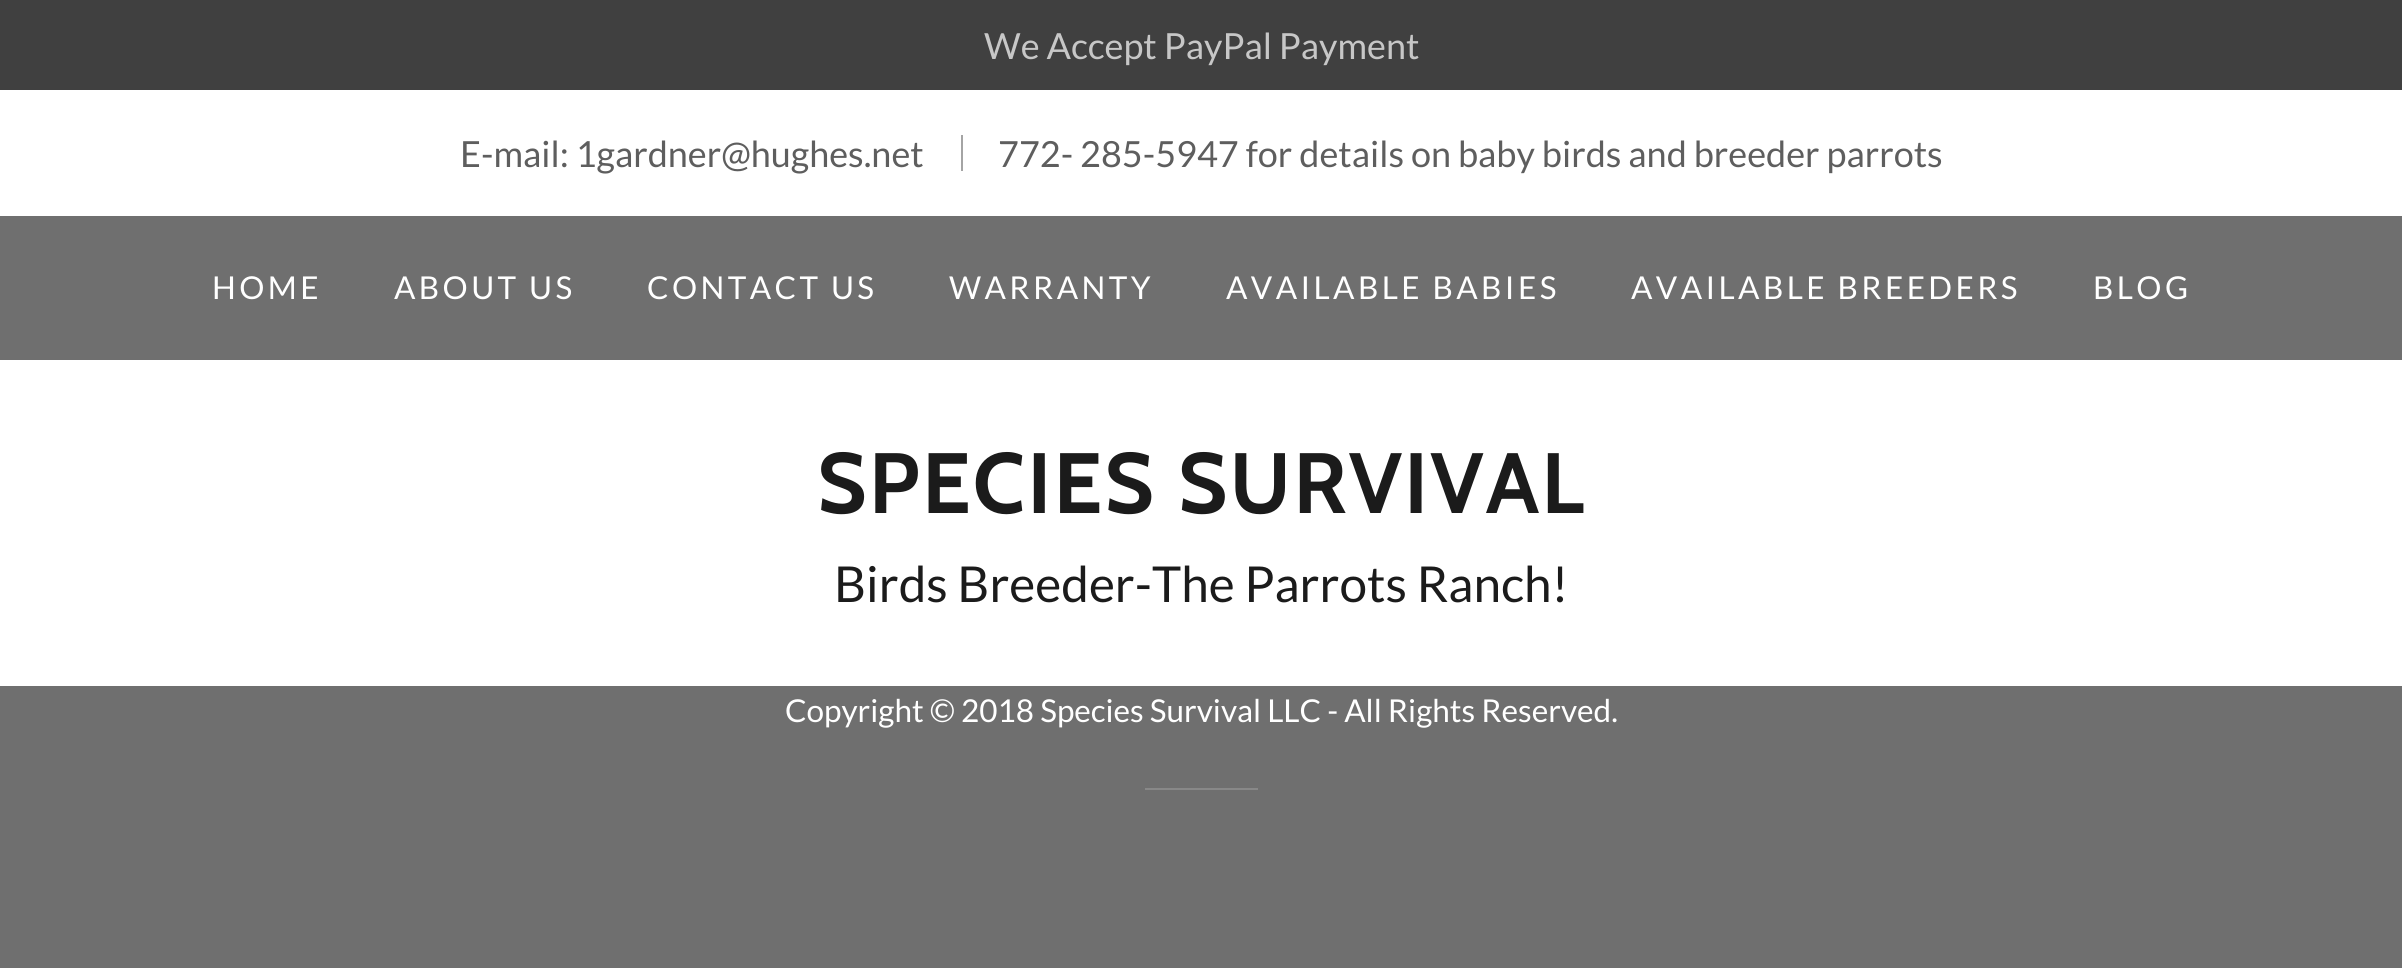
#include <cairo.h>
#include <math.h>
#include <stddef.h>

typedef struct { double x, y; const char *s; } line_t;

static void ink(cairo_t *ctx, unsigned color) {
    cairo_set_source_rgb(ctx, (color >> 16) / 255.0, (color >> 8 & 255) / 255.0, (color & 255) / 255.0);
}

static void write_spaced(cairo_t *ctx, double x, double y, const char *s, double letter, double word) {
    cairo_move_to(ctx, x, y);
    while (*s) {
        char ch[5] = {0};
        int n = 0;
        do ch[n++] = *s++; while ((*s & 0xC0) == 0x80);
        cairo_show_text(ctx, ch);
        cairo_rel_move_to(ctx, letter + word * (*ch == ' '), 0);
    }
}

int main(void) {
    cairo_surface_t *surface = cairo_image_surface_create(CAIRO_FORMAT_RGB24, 2402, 968);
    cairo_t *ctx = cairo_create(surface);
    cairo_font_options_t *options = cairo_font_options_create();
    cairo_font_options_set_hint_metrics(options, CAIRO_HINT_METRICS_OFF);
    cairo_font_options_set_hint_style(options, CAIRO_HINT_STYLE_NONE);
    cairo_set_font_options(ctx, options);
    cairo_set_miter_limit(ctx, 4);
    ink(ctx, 0x6F6F6F);
    cairo_paint(ctx);
    ink(ctx, 0xFFFFFF);
    cairo_rectangle(ctx, 0, 90, 2402, 596);
    cairo_fill(ctx);
    ink(ctx, 0x404040);
    cairo_rectangle(ctx, 0, 0, 2402, 90);
    cairo_fill(ctx);
    cairo_select_font_face(ctx, "Lato", CAIRO_FONT_SLANT_NORMAL, CAIRO_FONT_WEIGHT_NORMAL);
    cairo_set_font_size(ctx, 36);
    ink(ctx, 0xC7C7C7);
    cairo_move_to(ctx, 984, 59);
    cairo_show_text(ctx, "We Accept PayPal Payment");
    ink(ctx, 0x5E5E5E);
    cairo_move_to(ctx, 460, 167);
    cairo_show_text(ctx, "E-mail: 1gardner@hughes.net");
    ink(ctx, 0xA4A4A4);
    cairo_rectangle(ctx, 961, 135, 2, 36);
    cairo_fill(ctx);
    ink(ctx, 0x5E5E5E);
    cairo_move_to(ctx, 998, 167);
    cairo_show_text(ctx, "772- 285-5947 for details on baby birds and breeder parrots");
    ink(ctx, 0x6F6F6F);
    cairo_rectangle(ctx, 0, 216, 2402, 144);
    cairo_fill(ctx);
    cairo_set_font_size(ctx, 31.5);
    ink(ctx, 0xFFFFFF);
    {
        static const line_t items[] = {
            {212, 299, "HOME"},
            {394, 299, "ABOUT US"},
            {647, 299, "CONTACT US"},
            {949, 299, "WARRANTY"},
            {1226, 299, "AVAILABLE BABIES"},
            {1631, 299, "AVAILABLE BREEDERS"},
            {2093, 299, "BLOG"},
        };
        for (size_t i = 0; i < sizeof items / sizeof *items; i++) {
            write_spaced(ctx, items[i].x, items[i].y, items[i].s, 3.4, 0);
        }
    }
    cairo_select_font_face(ctx, "Cabin", CAIRO_FONT_SLANT_NORMAL, CAIRO_FONT_WEIGHT_BOLD);
    cairo_set_font_size(ctx, 85.5);
    ink(ctx, 0x1B1B1B);
    write_spaced(ctx, 817, 513, "SPECIES SURVIVAL", 2.25, 0);
    cairo_select_font_face(ctx, "Lato", CAIRO_FONT_SLANT_NORMAL, CAIRO_FONT_WEIGHT_NORMAL);
    cairo_set_font_size(ctx, 49.5);
    cairo_move_to(ctx, 834, 602);
    cairo_show_text(ctx, "Birds Breeder-The Parrots Ranch!");
    cairo_set_font_size(ctx, 31.5);
    ink(ctx, 0xFFFFFF);
    cairo_move_to(ctx, 785, 722);
    cairo_show_text(ctx, "Copyright © 2018 Species Survival LLC - All Rights Reserved.");
    ink(ctx, 0x888888);
    cairo_rectangle(ctx, 1145, 788, 113, 2);
    cairo_fill(ctx);
    cairo_surface_write_to_png(surface, "image.png");
    cairo_font_options_destroy(options);
    cairo_destroy(ctx);
    cairo_surface_destroy(surface);
    return 0;
}
